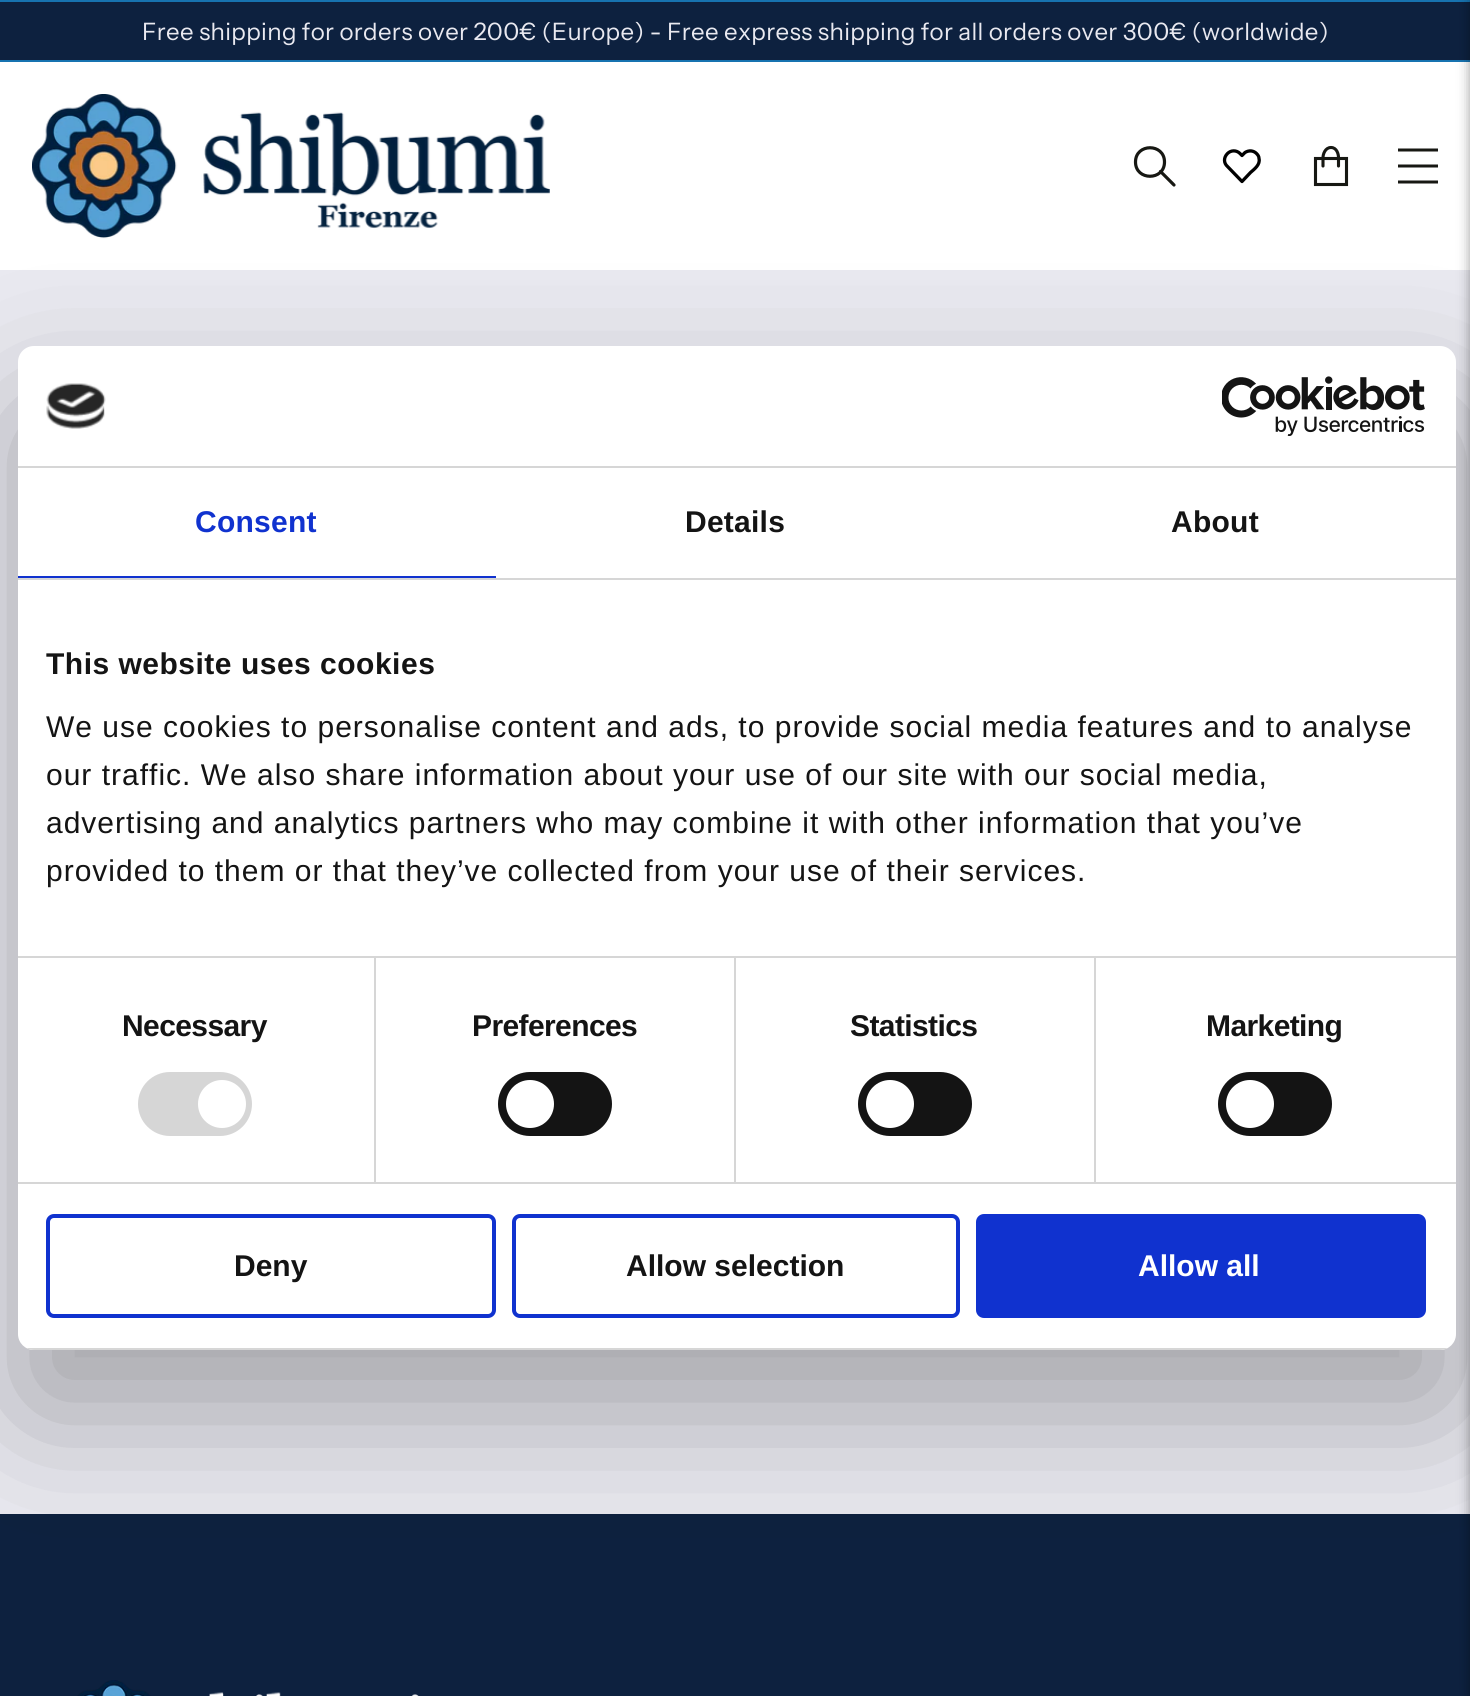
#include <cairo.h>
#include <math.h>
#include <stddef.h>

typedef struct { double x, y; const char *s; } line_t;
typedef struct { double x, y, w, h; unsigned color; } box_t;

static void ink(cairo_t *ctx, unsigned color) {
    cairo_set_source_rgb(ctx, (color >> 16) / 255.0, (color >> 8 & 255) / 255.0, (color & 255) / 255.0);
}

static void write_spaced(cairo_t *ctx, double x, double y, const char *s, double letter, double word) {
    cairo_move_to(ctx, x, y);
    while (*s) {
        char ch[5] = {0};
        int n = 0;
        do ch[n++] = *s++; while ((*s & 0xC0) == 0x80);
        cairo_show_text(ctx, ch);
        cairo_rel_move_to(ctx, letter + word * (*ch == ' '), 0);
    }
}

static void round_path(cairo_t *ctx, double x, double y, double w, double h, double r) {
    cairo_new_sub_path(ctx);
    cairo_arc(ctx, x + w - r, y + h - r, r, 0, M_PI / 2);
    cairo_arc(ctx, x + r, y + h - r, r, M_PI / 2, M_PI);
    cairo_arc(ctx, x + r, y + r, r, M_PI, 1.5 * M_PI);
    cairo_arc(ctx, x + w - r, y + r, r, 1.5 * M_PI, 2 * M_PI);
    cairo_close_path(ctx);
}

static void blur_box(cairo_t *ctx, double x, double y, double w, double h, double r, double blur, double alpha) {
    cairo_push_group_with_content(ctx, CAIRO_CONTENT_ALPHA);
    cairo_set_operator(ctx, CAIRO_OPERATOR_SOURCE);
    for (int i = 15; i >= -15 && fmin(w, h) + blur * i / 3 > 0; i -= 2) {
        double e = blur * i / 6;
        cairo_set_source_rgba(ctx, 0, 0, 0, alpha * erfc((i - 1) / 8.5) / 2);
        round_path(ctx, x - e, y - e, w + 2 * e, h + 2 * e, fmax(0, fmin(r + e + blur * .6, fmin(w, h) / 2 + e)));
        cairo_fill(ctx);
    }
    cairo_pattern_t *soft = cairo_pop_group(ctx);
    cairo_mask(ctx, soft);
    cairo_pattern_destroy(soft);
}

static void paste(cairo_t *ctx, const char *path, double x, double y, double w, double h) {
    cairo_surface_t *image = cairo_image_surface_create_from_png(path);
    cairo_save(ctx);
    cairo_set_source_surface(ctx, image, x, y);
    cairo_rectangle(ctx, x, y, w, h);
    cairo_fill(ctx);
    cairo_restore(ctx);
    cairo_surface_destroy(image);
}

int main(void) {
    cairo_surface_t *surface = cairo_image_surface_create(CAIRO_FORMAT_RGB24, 1470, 1696);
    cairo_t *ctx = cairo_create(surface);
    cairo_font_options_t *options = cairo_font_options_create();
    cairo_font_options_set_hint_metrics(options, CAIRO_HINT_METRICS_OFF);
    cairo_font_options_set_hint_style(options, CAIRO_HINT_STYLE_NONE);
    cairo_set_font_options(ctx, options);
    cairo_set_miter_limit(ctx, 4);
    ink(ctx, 0xE9E9F0);
    cairo_paint(ctx);
    {
        static const box_t items[] = {
            {0, 2, 1470, 58, 0x0D213F},
            {0, 0, 1470, 2, 0x1773B0},
            {0, 60, 1470, 2, 0x1773B0},
        };
        for (size_t i = 0; i < sizeof items / sizeof *items; i++) {
            ink(ctx, items[i].color);
            cairo_rectangle(ctx, items[i].x, items[i].y, items[i].w, items[i].h);
            cairo_fill(ctx);
        }
    }
    cairo_select_font_face(ctx, "Instrument Sans", CAIRO_FONT_SLANT_NORMAL, CAIRO_FONT_WEIGHT_NORMAL);
    cairo_set_font_size(ctx, 24);
    ink(ctx, 0xE9E9F0);
    write_spaced(ctx, 142, 40, "Free shipping for orders over 200€ (Europe) - Free express shipping for all orders over 300€ (worldwide)", 0.32, 0);
    ink(ctx, 0xFFFFFF);
    cairo_rectangle(ctx, 0, 62, 1470, 208);
    cairo_fill(ctx);
    ink(ctx, 0x0D213F);
    cairo_rectangle(ctx, 0, 1514, 1470, 182);
    cairo_fill(ctx);
    ink(ctx, 0x000000);
    blur_box(ctx, 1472, 0, 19, 1696, 0, 7, 0.5);
    paste(ctx, "media/1.png", 32, 94, 518, 145);
    cairo_new_path(ctx);
    cairo_move_to(ctx, 1164.5, 162);
    cairo_curve_to(ctx, 1164.5, 181, 1135.5, 181, 1135.5, 162);
    cairo_curve_to(ctx, 1135.5, 143, 1164.5, 143, 1164.5, 162);
    cairo_close_path(ctx);
    ink(ctx, 0x171813);
    cairo_set_line_width(ctx, 3.2);
    cairo_stroke(ctx);
    cairo_new_path(ctx);
    cairo_move_to(ctx, 1160.5, 171.5);
    cairo_line_to(ctx, 1174, 185);
    cairo_set_line_cap(ctx, CAIRO_LINE_CAP_ROUND);
    cairo_stroke(ctx);
    cairo_new_path(ctx);
    cairo_move_to(ctx, 1256.5, 153.5);
    cairo_curve_to(ctx, 1253.5, 150.5, 1249, 150, 1245, 152.5);
    cairo_line_to(ctx, 1242, 155.5);
    cairo_line_to(ctx, 1240, 153.5);
    cairo_curve_to(ctx, 1236.5, 150, 1231, 150, 1227.5, 153.5);
    cairo_curve_to(ctx, 1223.5, 157.5, 1223.5, 163, 1227.5, 166.5);
    cairo_line_to(ctx, 1242, 181.5);
    cairo_line_to(ctx, 1250.5, 172.5);
    cairo_curve_to(ctx, 1254.5, 169, 1260.5, 164.5, 1259, 158.5);
    cairo_curve_to(ctx, 1259, 156.5, 1258, 155, 1256.5, 153.5);
    cairo_close_path(ctx);
    ink(ctx, 0x000000);
    cairo_set_line_width(ctx, 3.3);
    cairo_set_line_join(ctx, CAIRO_LINE_JOIN_ROUND);
    cairo_stroke(ctx);
    cairo_new_path(ctx);
    cairo_move_to(ctx, 1315.5, 158.5);
    cairo_line_to(ctx, 1346.5, 158.5);
    cairo_line_to(ctx, 1346.5, 184.5);
    cairo_line_to(ctx, 1315.5, 184.5);
    cairo_close_path(ctx);
    ink(ctx, 0x171813);
    cairo_set_line_width(ctx, 3.1);
    cairo_set_line_cap(ctx, CAIRO_LINE_CAP_BUTT);
    cairo_set_line_join(ctx, CAIRO_LINE_JOIN_MITER);
    cairo_stroke(ctx);
    cairo_new_path(ctx);
    cairo_move_to(ctx, 1338.5, 166);
    cairo_line_to(ctx, 1338.5, 157.5);
    cairo_curve_to(ctx, 1338.5, 154.5, 1337, 147.5, 1331, 147.5);
    cairo_curve_to(ctx, 1325, 147.5, 1323, 154.5, 1323, 157.5);
    cairo_line_to(ctx, 1323, 166);
    cairo_set_line_cap(ctx, CAIRO_LINE_CAP_ROUND);
    cairo_stroke(ctx);
    cairo_new_path(ctx);
    cairo_move_to(ctx, 1398, 182);
    cairo_line_to(ctx, 1438, 182);
    cairo_move_to(ctx, 1398, 166);
    cairo_line_to(ctx, 1438, 166);
    cairo_move_to(ctx, 1398, 150);
    cairo_line_to(ctx, 1438, 150);
    cairo_set_line_width(ctx, 3);
    cairo_set_line_cap(ctx, CAIRO_LINE_CAP_BUTT);
    cairo_stroke(ctx);
    ink(ctx, 0x000000);
    blur_box(ctx, 18, 410, 1438, 1004, 16, 68, 0.3);
    ink(ctx, 0xFFFFFF);
    round_path(ctx, 18, 346, 1438, 1004, 16);
    cairo_fill(ctx);
    ink(ctx, 0xD6D6D6);
    cairo_rectangle(ctx, 18, 466, 1438, 2);
    cairo_fill(ctx);
    paste(ctx, "media/2.png", 46, 383, 60, 46);
    paste(ctx, "media/3.png", 1222, 376, 203, 60);
    cairo_rectangle(ctx, 18, 578, 1438, 2);
    cairo_fill(ctx);
    ink(ctx, 0x1032CF);
    cairo_rectangle(ctx, 18, 576, 478, 2);
    cairo_fill(ctx);
    cairo_select_font_face(ctx, "Liberation Sans", CAIRO_FONT_SLANT_NORMAL, CAIRO_FONT_WEIGHT_BOLD);
    cairo_set_font_size(ctx, 30);
    write_spaced(ctx, 195, 532, "Consent", 0.25, 0);
    ink(ctx, 0x141414);
    write_spaced(ctx, 685, 532, "Details", 0.25, 0);
    write_spaced(ctx, 1171, 532, "About", 0.25, 0);
    ink(ctx, 0xD6D6D6);
    cairo_rectangle(ctx, 18, 956, 1438, 2);
    cairo_fill(ctx);
    ink(ctx, 0x141414);
    write_spaced(ctx, 46, 674, "This website uses cookies", 0.5, 0);
    cairo_select_font_face(ctx, "Liberation Sans", CAIRO_FONT_SLANT_NORMAL, CAIRO_FONT_WEIGHT_NORMAL);
    {
        static const line_t items[] = {
            {46, 737, "We use cookies to personalise content and ads, to provide social media features and to analyse"},
            {46, 785, "our traffic. We also share information about your use of our site with our social media,"},
            {46, 833, "advertising and analytics partners who may combine it with other information that you’ve"},
            {46, 881, "provided to them or that they’ve collected from your use of their services."},
        };
        for (size_t i = 0; i < sizeof items / sizeof *items; i++) {
            write_spaced(ctx, items[i].x, items[i].y, items[i].s, 1, 0);
        }
    }
    ink(ctx, 0xD6D6D6);
    cairo_rectangle(ctx, 18, 1182, 1438, 2);
    cairo_fill(ctx);
    cairo_rectangle(ctx, 374, 958, 2, 224);
    cairo_fill(ctx);
    cairo_select_font_face(ctx, "Liberation Sans", CAIRO_FONT_SLANT_NORMAL, CAIRO_FONT_WEIGHT_BOLD);
    ink(ctx, 0x141414);
    write_spaced(ctx, 122, 1036, "Necessary", -0.6, 0);
    ink(ctx, 0xD6D6D6);
    round_path(ctx, 138, 1072, 114, 64, 32);
    cairo_fill(ctx);
    ink(ctx, 0xFFFFFF);
    cairo_arc(ctx, 222, 1104, 24, 0, 2 * M_PI);
    cairo_fill(ctx);
    ink(ctx, 0xD6D6D6);
    cairo_rectangle(ctx, 734, 958, 2, 224);
    cairo_fill(ctx);
    ink(ctx, 0x141414);
    write_spaced(ctx, 472, 1036, "Preferences", -0.6, 0);
    round_path(ctx, 498, 1072, 114, 64, 32);
    cairo_fill(ctx);
    ink(ctx, 0xFFFFFF);
    cairo_arc(ctx, 530, 1104, 24, 0, 2 * M_PI);
    cairo_fill(ctx);
    ink(ctx, 0xD6D6D6);
    cairo_rectangle(ctx, 1094, 958, 2, 224);
    cairo_fill(ctx);
    ink(ctx, 0x141414);
    write_spaced(ctx, 850, 1036, "Statistics", -0.6, 0);
    round_path(ctx, 858, 1072, 114, 64, 32);
    cairo_fill(ctx);
    ink(ctx, 0xFFFFFF);
    cairo_arc(ctx, 890, 1104, 24, 0, 2 * M_PI);
    cairo_fill(ctx);
    ink(ctx, 0x141414);
    write_spaced(ctx, 1206, 1036, "Marketing", -0.6, 0);
    round_path(ctx, 1218, 1072, 114, 64, 32);
    cairo_fill(ctx);
    ink(ctx, 0xFFFFFF);
    cairo_arc(ctx, 1250, 1104, 24, 0, 2 * M_PI);
    cairo_fill(ctx);
    cairo_save(ctx);
    round_path(ctx, 18, 346, 1438, 1004, 16);
    cairo_clip(ctx);
    ink(ctx, 0xD6D6D6);
    cairo_rectangle(ctx, 18, 1348, 1438, 2);
    cairo_fill(ctx);
    cairo_restore(ctx);
    round_path(ctx, 48, 1216, 446, 100, 6);
    ink(ctx, 0x1032CF);
    cairo_set_line_width(ctx, 4);
    cairo_stroke(ctx);
    ink(ctx, 0x141414);
    cairo_move_to(ctx, 234, 1276);
    cairo_show_text(ctx, "Deny");
    round_path(ctx, 514, 1216, 444, 100, 6);
    ink(ctx, 0x1032CF);
    cairo_stroke(ctx);
    ink(ctx, 0x141414);
    cairo_move_to(ctx, 626, 1276);
    cairo_show_text(ctx, "Allow selection");
    ink(ctx, 0x1032CF);
    round_path(ctx, 978, 1216, 446, 100, 6);
    cairo_fill_preserve(ctx);
    cairo_stroke(ctx);
    ink(ctx, 0xFFFFFF);
    cairo_move_to(ctx, 1138, 1276);
    cairo_show_text(ctx, "Allow all");
    paste(ctx, "media/4.png", 77, 1680, 342, 16);
    cairo_surface_write_to_png(surface, "image.png");
    cairo_font_options_destroy(options);
    cairo_destroy(ctx);
    cairo_surface_destroy(surface);
    return 0;
}
